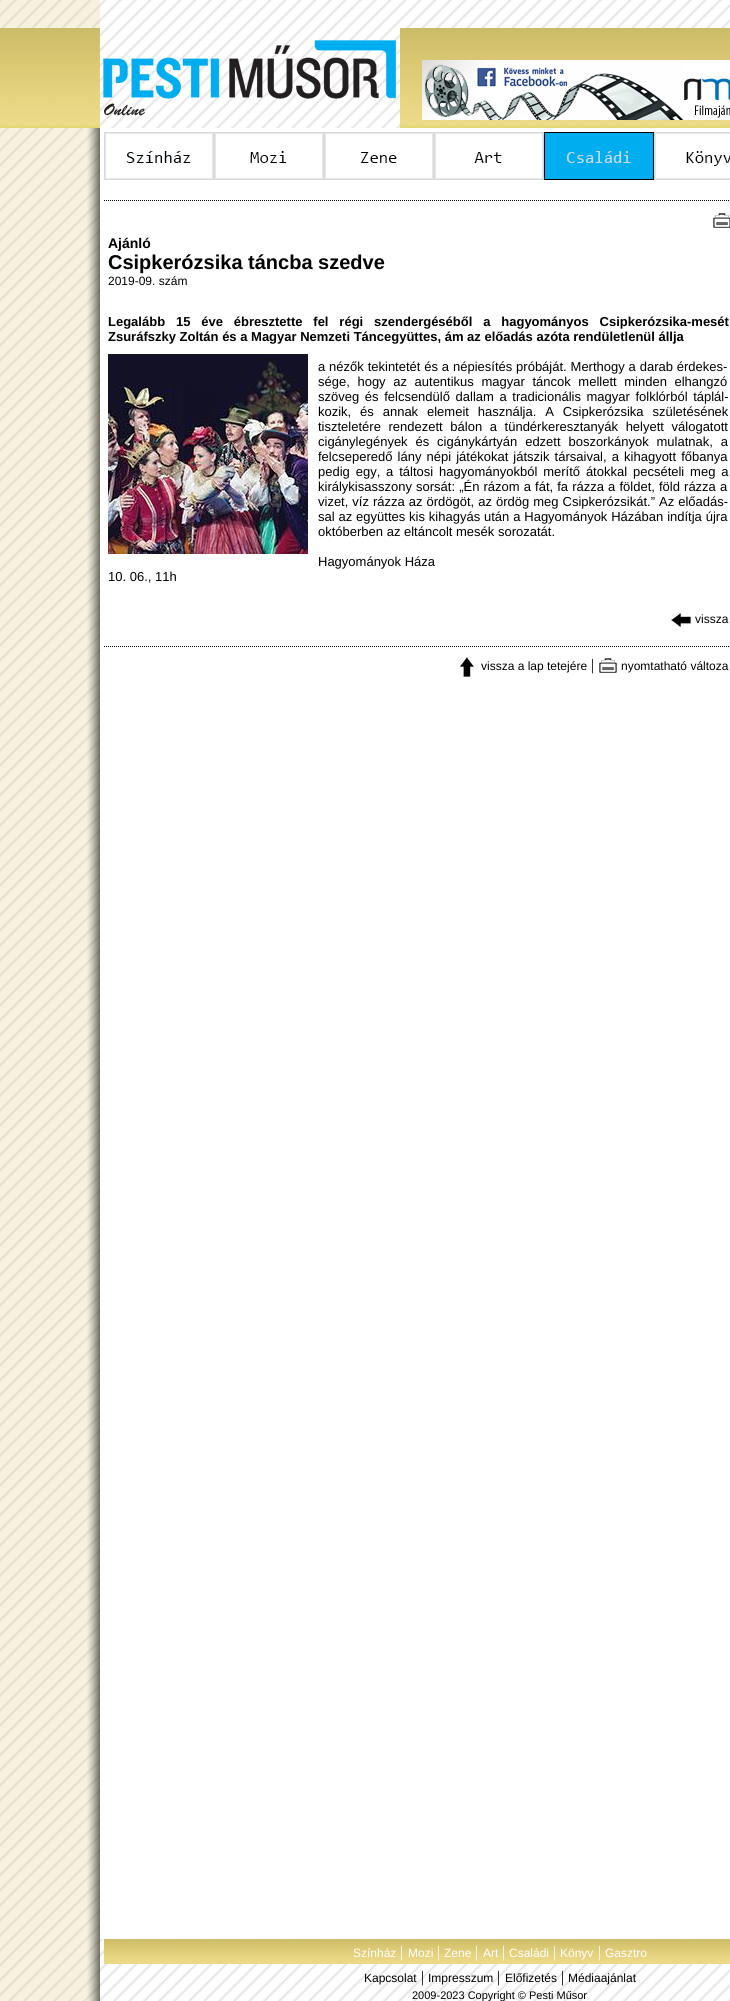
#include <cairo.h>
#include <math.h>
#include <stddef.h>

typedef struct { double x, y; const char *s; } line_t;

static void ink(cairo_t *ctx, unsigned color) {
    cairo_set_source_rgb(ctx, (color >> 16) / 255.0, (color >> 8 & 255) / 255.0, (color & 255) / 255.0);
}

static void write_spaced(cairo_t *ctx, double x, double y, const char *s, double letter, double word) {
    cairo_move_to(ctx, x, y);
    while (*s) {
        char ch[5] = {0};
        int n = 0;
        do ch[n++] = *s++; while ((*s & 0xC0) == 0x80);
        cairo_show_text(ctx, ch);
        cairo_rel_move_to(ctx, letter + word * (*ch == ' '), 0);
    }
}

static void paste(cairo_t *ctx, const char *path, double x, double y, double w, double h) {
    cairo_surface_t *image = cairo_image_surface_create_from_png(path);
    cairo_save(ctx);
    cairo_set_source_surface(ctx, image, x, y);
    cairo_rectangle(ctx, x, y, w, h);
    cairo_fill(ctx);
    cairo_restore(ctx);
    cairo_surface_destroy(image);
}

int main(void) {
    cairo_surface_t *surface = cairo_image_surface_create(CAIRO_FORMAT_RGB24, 730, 2001);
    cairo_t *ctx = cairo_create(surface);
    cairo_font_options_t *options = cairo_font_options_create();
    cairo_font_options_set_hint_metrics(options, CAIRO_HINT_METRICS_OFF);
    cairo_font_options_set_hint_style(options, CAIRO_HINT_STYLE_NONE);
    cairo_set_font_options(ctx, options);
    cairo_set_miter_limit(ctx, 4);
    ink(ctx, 0xFFFFFF);
    cairo_paint(ctx);
    paste(ctx, "media/1.png", 0, 0, 730, 2001);
    cairo_set_source_rgba(ctx, 0.89, 0.812, 0.502, 0.25);
    cairo_rectangle(ctx, 0, 0, 100, 28);
    cairo_fill(ctx);
    paste(ctx, "media/2.png", 0, 28, 100, 100);
    paste(ctx, "media/3.png", 103, 40, 293, 76);
    paste(ctx, "media/4.png", 400, 28, 330, 100);
    paste(ctx, "media/5.png", 422, 60, 308, 60);
    cairo_rectangle(ctx, 0, 128, 100, 1811);
    cairo_fill(ctx);
    paste(ctx, "media/6.png", 87, 128, 13, 1811);
    ink(ctx, 0xFFFFFF);
    cairo_rectangle(ctx, 100, 128, 630, 1811);
    cairo_fill(ctx);
    paste(ctx, "media/7.png", 104, 132, 110, 48);
    paste(ctx, "media/8.png", 214, 132, 110, 48);
    paste(ctx, "media/9.png", 324, 132, 110, 48);
    paste(ctx, "media/10.png", 434, 132, 110, 48);
    paste(ctx, "media/11.png", 544, 132, 110, 48);
    paste(ctx, "media/12.png", 654, 132, 76, 48);
    paste(ctx, "media/13.png", 104, 200, 625, 1);
    paste(ctx, "media/14.png", 713, 211, 17, 17);
    cairo_select_font_face(ctx, "Liberation Sans", CAIRO_FONT_SLANT_NORMAL, CAIRO_FONT_WEIGHT_BOLD);
    cairo_set_font_size(ctx, 14);
    ink(ctx, 0x000000);
    cairo_move_to(ctx, 108, 248);
    cairo_show_text(ctx, "Ajánló");
    cairo_set_font_size(ctx, 20);
    cairo_move_to(ctx, 108, 269);
    cairo_show_text(ctx, "Csipkerózsika táncba szedve");
    cairo_select_font_face(ctx, "Liberation Sans", CAIRO_FONT_SLANT_NORMAL, CAIRO_FONT_WEIGHT_NORMAL);
    cairo_set_font_size(ctx, 12);
    cairo_move_to(ctx, 108, 285);
    cairo_show_text(ctx, "2019-09. szám");
    cairo_select_font_face(ctx, "Liberation Sans", CAIRO_FONT_SLANT_NORMAL, CAIRO_FONT_WEIGHT_BOLD);
    cairo_set_font_size(ctx, 13);
    write_spaced(ctx, 108, 326, "Legalább 15 éve ébresztette fel régi szendergéséből a hagyományos Csipkerózsika-mesét", 0, 7.25);
    cairo_move_to(ctx, 108, 341);
    cairo_show_text(ctx, "Zsuráfszky Zoltán és a Magyar Nemzeti Táncegyüttes, ám az előadás azóta rendületlenül állja");
    paste(ctx, "media/15.png", 108, 354, 200, 200);
    cairo_select_font_face(ctx, "Liberation Sans", CAIRO_FONT_SLANT_NORMAL, CAIRO_FONT_WEIGHT_NORMAL);
    write_spaced(ctx, 318, 371, "a nézők tekintetét és a népiesítés próbáját. Merthogy a darab érdekes-", 0, 0.25);
    write_spaced(ctx, 318, 386, "sége, hogy az autentikus magyar táncok mellett minden elhangzó", 0, 4);
    write_spaced(ctx, 318, 401, "szöveg és felcsendülő dallam a tradicionális magyar folklórból táplál-", 0, 2);
    write_spaced(ctx, 318, 416, "kozik, és annak elemeit használja. A Csipkerózsika születésének", 0, 5.25);
    write_spaced(ctx, 318, 431, "tiszteletére rendezett bálon a tündérkeresztanyák helyett válogatott", 0, 4);
    write_spaced(ctx, 318, 446, "cigánylegények és cigánykártyán edzett boszorkányok mulatnak, a", 0, 4.25);
    write_spaced(ctx, 318, 461, "felcseperedő lány népi játékokat játszik társaival, a kihagyott főbanya", 0, 1.5);
    write_spaced(ctx, 318, 476, "pedig egy, a táltosi hagyományokból merítő átokkal pecsételi meg a", 0, 2.25);
    write_spaced(ctx, 318, 491, "királykisasszony sorsát: „Én rázom a fát, fa rázza a földet, föld rázza a", 0, 0.5);
    write_spaced(ctx, 318, 506, "vizet, víz rázza az ördögöt, az ördög meg Csipkerózsikát.” Az előadás-", 0, 0.4);
    write_spaced(ctx, 318, 521, "sal az együttes kis kihagyás után a Hagyományok Házában indítja újra", 0, 0.25);
    {
        static const line_t items[] = {
            {318, 536, "októberben az eltáncolt mesék sorozatát."},
            {318, 566, "Hagyományok Háza"},
            {108, 581, "10. 06., 11h"},
        };
        for (size_t i = 0; i < sizeof items / sizeof *items; i++) {
            cairo_move_to(ctx, items[i].x, items[i].y);
            cairo_show_text(ctx, items[i].s);
        }
    }
    paste(ctx, "media/16.png", 671, 610, 20, 20);
    cairo_set_font_size(ctx, 12);
    cairo_move_to(ctx, 695, 623);
    cairo_show_text(ctx, "vissza");
    paste(ctx, "media/13.png", 104, 646, 625, 1);
    paste(ctx, "media/17.png", 457, 657, 18, 20);
    cairo_move_to(ctx, 481, 670);
    cairo_show_text(ctx, "vissza a lap tetejére");
    cairo_select_font_face(ctx, "Liberation Serif", CAIRO_FONT_SLANT_NORMAL, CAIRO_FONT_WEIGHT_NORMAL);
    cairo_set_font_size(ctx, 16);
    cairo_move_to(ctx, 591, 670);
    cairo_show_text(ctx, "|");
    paste(ctx, "media/18.png", 599, 656, 18, 17);
    cairo_select_font_face(ctx, "Liberation Sans", CAIRO_FONT_SLANT_NORMAL, CAIRO_FONT_WEIGHT_NORMAL);
    cairo_set_font_size(ctx, 12);
    cairo_move_to(ctx, 621, 670);
    cairo_show_text(ctx, "nyomtatható változa");
    cairo_set_source_rgba(ctx, 0.89, 0.812, 0.502, 0.25);
    cairo_rectangle(ctx, 0, 1939, 100, 62);
    cairo_fill(ctx);
    paste(ctx, "media/19.png", 87, 1939, 13, 62);
    paste(ctx, "media/20.png", 104, 1939, 626, 25);
    ink(ctx, 0xFFFFFF);
    cairo_move_to(ctx, 353, 1957);
    cairo_show_text(ctx, "Színház");
    cairo_select_font_face(ctx, "Liberation Serif", CAIRO_FONT_SLANT_NORMAL, CAIRO_FONT_WEIGHT_NORMAL);
    cairo_set_font_size(ctx, 16);
    cairo_move_to(ctx, 400, 1957);
    cairo_show_text(ctx, "|");
    cairo_select_font_face(ctx, "Liberation Sans", CAIRO_FONT_SLANT_NORMAL, CAIRO_FONT_WEIGHT_NORMAL);
    cairo_set_font_size(ctx, 12);
    cairo_move_to(ctx, 408, 1957);
    cairo_show_text(ctx, "Mozi");
    cairo_select_font_face(ctx, "Liberation Serif", CAIRO_FONT_SLANT_NORMAL, CAIRO_FONT_WEIGHT_NORMAL);
    cairo_set_font_size(ctx, 16);
    cairo_move_to(ctx, 437, 1957);
    cairo_show_text(ctx, "|");
    cairo_select_font_face(ctx, "Liberation Sans", CAIRO_FONT_SLANT_NORMAL, CAIRO_FONT_WEIGHT_NORMAL);
    cairo_set_font_size(ctx, 12);
    cairo_move_to(ctx, 444, 1957);
    cairo_show_text(ctx, "Zene");
    cairo_select_font_face(ctx, "Liberation Serif", CAIRO_FONT_SLANT_NORMAL, CAIRO_FONT_WEIGHT_NORMAL);
    cairo_set_font_size(ctx, 16);
    cairo_move_to(ctx, 475, 1957);
    cairo_show_text(ctx, "|");
    cairo_select_font_face(ctx, "Liberation Sans", CAIRO_FONT_SLANT_NORMAL, CAIRO_FONT_WEIGHT_NORMAL);
    cairo_set_font_size(ctx, 12);
    cairo_move_to(ctx, 483, 1957);
    cairo_show_text(ctx, "Art");
    cairo_select_font_face(ctx, "Liberation Serif", CAIRO_FONT_SLANT_NORMAL, CAIRO_FONT_WEIGHT_NORMAL);
    cairo_set_font_size(ctx, 16);
    cairo_move_to(ctx, 502, 1957);
    cairo_show_text(ctx, "|");
    cairo_select_font_face(ctx, "Liberation Sans", CAIRO_FONT_SLANT_NORMAL, CAIRO_FONT_WEIGHT_NORMAL);
    cairo_set_font_size(ctx, 12);
    cairo_move_to(ctx, 509, 1957);
    cairo_show_text(ctx, "Családi");
    cairo_select_font_face(ctx, "Liberation Serif", CAIRO_FONT_SLANT_NORMAL, CAIRO_FONT_WEIGHT_NORMAL);
    cairo_set_font_size(ctx, 16);
    cairo_move_to(ctx, 553, 1957);
    cairo_show_text(ctx, "|");
    cairo_select_font_face(ctx, "Liberation Sans", CAIRO_FONT_SLANT_NORMAL, CAIRO_FONT_WEIGHT_NORMAL);
    cairo_set_font_size(ctx, 12);
    cairo_move_to(ctx, 560, 1957);
    cairo_show_text(ctx, "Könyv");
    cairo_select_font_face(ctx, "Liberation Serif", CAIRO_FONT_SLANT_NORMAL, CAIRO_FONT_WEIGHT_NORMAL);
    cairo_set_font_size(ctx, 16);
    cairo_move_to(ctx, 598, 1957);
    cairo_show_text(ctx, "|");
    cairo_select_font_face(ctx, "Liberation Sans", CAIRO_FONT_SLANT_NORMAL, CAIRO_FONT_WEIGHT_NORMAL);
    cairo_set_font_size(ctx, 12);
    cairo_move_to(ctx, 605, 1957);
    cairo_show_text(ctx, "Gasztro");
    ink(ctx, 0x000000);
    cairo_move_to(ctx, 364, 1982);
    cairo_show_text(ctx, "Kapcsolat");
    cairo_select_font_face(ctx, "Liberation Serif", CAIRO_FONT_SLANT_NORMAL, CAIRO_FONT_WEIGHT_NORMAL);
    cairo_set_font_size(ctx, 16);
    cairo_move_to(ctx, 421, 1982);
    cairo_show_text(ctx, "|");
    cairo_select_font_face(ctx, "Liberation Sans", CAIRO_FONT_SLANT_NORMAL, CAIRO_FONT_WEIGHT_NORMAL);
    cairo_set_font_size(ctx, 12);
    cairo_move_to(ctx, 428, 1982);
    cairo_show_text(ctx, "Impresszum");
    cairo_select_font_face(ctx, "Liberation Serif", CAIRO_FONT_SLANT_NORMAL, CAIRO_FONT_WEIGHT_NORMAL);
    cairo_set_font_size(ctx, 16);
    cairo_move_to(ctx, 497, 1982);
    cairo_show_text(ctx, "|");
    cairo_select_font_face(ctx, "Liberation Sans", CAIRO_FONT_SLANT_NORMAL, CAIRO_FONT_WEIGHT_NORMAL);
    cairo_set_font_size(ctx, 12);
    cairo_move_to(ctx, 505, 1982);
    cairo_show_text(ctx, "Előfizetés");
    cairo_select_font_face(ctx, "Liberation Serif", CAIRO_FONT_SLANT_NORMAL, CAIRO_FONT_WEIGHT_NORMAL);
    cairo_set_font_size(ctx, 16);
    cairo_move_to(ctx, 561, 1982);
    cairo_show_text(ctx, "|");
    cairo_select_font_face(ctx, "Liberation Sans", CAIRO_FONT_SLANT_NORMAL, CAIRO_FONT_WEIGHT_NORMAL);
    cairo_set_font_size(ctx, 12);
    cairo_move_to(ctx, 568, 1982);
    cairo_show_text(ctx, "Médiaajánlat");
    cairo_set_font_size(ctx, 11);
    cairo_move_to(ctx, 412, 1999);
    cairo_show_text(ctx, "2009-2023 Copyright © Pesti Műsor");
    cairo_surface_write_to_png(surface, "image.png");
    cairo_font_options_destroy(options);
    cairo_destroy(ctx);
    cairo_surface_destroy(surface);
    return 0;
}
